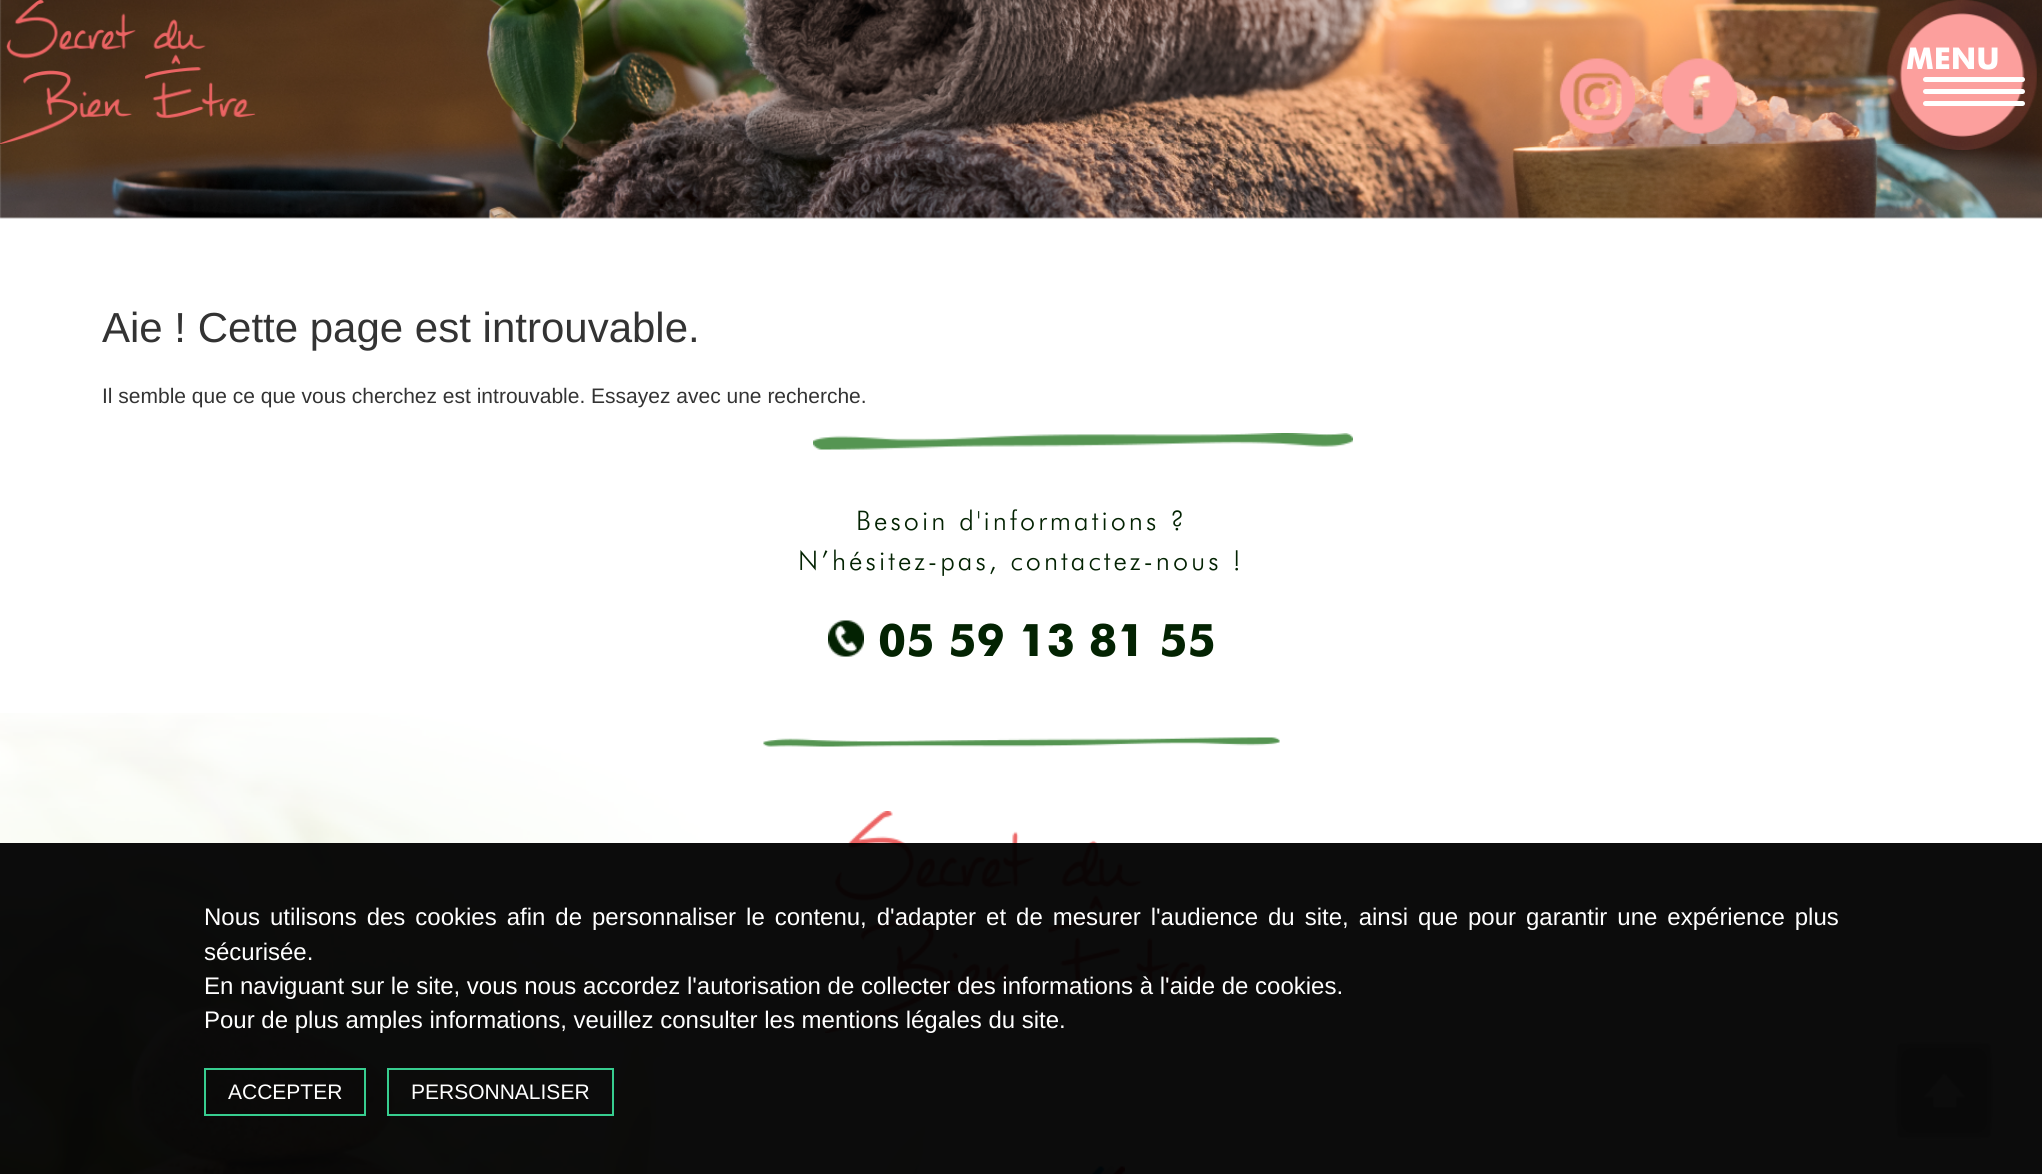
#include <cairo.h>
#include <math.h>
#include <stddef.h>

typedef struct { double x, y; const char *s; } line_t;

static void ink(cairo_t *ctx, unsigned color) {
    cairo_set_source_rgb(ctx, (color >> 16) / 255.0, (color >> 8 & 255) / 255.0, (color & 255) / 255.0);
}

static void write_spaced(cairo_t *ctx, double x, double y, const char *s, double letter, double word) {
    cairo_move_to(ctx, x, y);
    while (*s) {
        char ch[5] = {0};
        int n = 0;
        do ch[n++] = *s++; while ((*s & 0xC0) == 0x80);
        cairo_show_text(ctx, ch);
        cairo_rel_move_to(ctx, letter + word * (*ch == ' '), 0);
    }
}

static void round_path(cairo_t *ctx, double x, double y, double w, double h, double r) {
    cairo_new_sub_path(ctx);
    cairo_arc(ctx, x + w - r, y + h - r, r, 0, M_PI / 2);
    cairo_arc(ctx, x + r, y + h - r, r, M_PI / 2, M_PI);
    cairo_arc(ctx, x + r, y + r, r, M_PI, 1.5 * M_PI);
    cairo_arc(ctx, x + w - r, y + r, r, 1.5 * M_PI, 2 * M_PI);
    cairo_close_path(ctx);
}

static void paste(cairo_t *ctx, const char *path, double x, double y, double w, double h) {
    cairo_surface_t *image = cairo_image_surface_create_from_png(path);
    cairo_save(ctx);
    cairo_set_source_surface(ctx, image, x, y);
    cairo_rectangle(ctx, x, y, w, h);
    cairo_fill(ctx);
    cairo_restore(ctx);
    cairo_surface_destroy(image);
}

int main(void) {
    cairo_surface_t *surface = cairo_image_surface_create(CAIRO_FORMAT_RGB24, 2042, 1174);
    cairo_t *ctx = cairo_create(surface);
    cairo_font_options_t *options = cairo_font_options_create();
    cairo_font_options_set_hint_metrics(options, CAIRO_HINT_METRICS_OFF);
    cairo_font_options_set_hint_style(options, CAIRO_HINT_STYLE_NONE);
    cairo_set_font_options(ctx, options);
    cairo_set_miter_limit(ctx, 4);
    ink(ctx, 0xFFFFFF);
    cairo_paint(ctx);
    paste(ctx, "media/1.png", 0, 0, 2042, 219);
    paste(ctx, "media/2.png", 1559, 58, 76, 76);
    paste(ctx, "media/3.png", 1661, 58, 76, 76);
    paste(ctx, "media/4.png", 0, 0, 256, 144);
    paste(ctx, "media/5.png", 1886, 0, 151, 150);
    ink(ctx, 0xFFFFFF);
    round_path(ctx, 1923, 77, 102, 5, 2.5);
    cairo_fill(ctx);
    round_path(ctx, 1923, 89, 102, 5, 2.5);
    cairo_fill(ctx);
    round_path(ctx, 1923, 101, 102, 5, 2.5);
    cairo_fill(ctx);
    cairo_select_font_face(ctx, "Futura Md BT", CAIRO_FONT_SLANT_NORMAL, CAIRO_FONT_WEIGHT_BOLD);
    cairo_set_font_size(ctx, 30);
    cairo_move_to(ctx, 1906, 69);
    cairo_show_text(ctx, "MENU");
    cairo_select_font_face(ctx, "Liberation Sans", CAIRO_FONT_SLANT_NORMAL, CAIRO_FONT_WEIGHT_NORMAL);
    cairo_set_font_size(ctx, 42);
    ink(ctx, 0x333333);
    cairo_move_to(ctx, 102, 342);
    cairo_show_text(ctx, "Aie ! Cette page est introuvable.");
    cairo_set_font_size(ctx, 21);
    cairo_move_to(ctx, 102, 403);
    cairo_show_text(ctx, "Il semble que ce que vous cherchez est introuvable. Essayez avec une recherche.");
    paste(ctx, "media/6.png", 0, 713, 928, 461);
    paste(ctx, "media/7.png", 813, 433, 540, 17);
    cairo_select_font_face(ctx, "Futura Light", CAIRO_FONT_SLANT_NORMAL, CAIRO_FONT_WEIGHT_NORMAL);
    cairo_set_font_size(ctx, 27);
    ink(ctx, 0x032302);
    write_spaced(ctx, 856, 530, "Besoin d'informations ?", 3.05, 0);
    write_spaced(ctx, 798, 570, "N’hésitez-pas, contactez-nous !", 3.05, 0);
    paste(ctx, "media/8.png", 828, 620, 36, 37);
    cairo_select_font_face(ctx, "Futura Md BT", CAIRO_FONT_SLANT_NORMAL, CAIRO_FONT_WEIGHT_BOLD);
    cairo_set_font_size(ctx, 45);
    cairo_move_to(ctx, 878, 656);
    cairo_show_text(ctx, "05 59 13 81 55");
    paste(ctx, "media/9.png", 763, 737, 517, 10);
    paste(ctx, "media/10.png", 825, 811, 393, 222);
    paste(ctx, "media/11.png", 1091, 1166, 34, 8);
    paste(ctx, "media/12.png", 1891, 1038, 106, 105);
    cairo_set_source_rgba(ctx, 0, 0, 0, 0.95);
    cairo_rectangle(ctx, 0, 843, 2042, 331);
    cairo_fill(ctx);
    cairo_select_font_face(ctx, "Liberation Sans", CAIRO_FONT_SLANT_NORMAL, CAIRO_FONT_WEIGHT_NORMAL);
    cairo_set_font_size(ctx, 24);
    ink(ctx, 0xFFFFFF);
    write_spaced(ctx, 204, 925, "Nous utilisons des cookies afin de personnaliser le contenu, d'adapter et de mesurer l'audience du site, ainsi que pour garantir une expérience plus", 0, 3.3);
    {
        static const line_t items[] = {
            {204, 960, "sécurisée."},
            {204, 994, "En naviguant sur le site, vous nous accordez l'autorisation de collecter des informations à l'aide de cookies."},
            {204, 1028, "Pour de plus amples informations, veuillez consulter les mentions légales du site."},
        };
        for (size_t i = 0; i < sizeof items / sizeof *items; i++) {
            cairo_move_to(ctx, items[i].x, items[i].y);
            cairo_show_text(ctx, items[i].s);
        }
    }
    cairo_rectangle(ctx, 205, 1069, 160, 46);
    ink(ctx, 0x37CD8F);
    cairo_stroke(ctx);
    cairo_set_font_size(ctx, 21);
    ink(ctx, 0xFFFFFF);
    cairo_move_to(ctx, 228, 1099);
    cairo_show_text(ctx, "ACCEPTER");
    cairo_rectangle(ctx, 388, 1069, 225, 46);
    ink(ctx, 0x37CD8F);
    cairo_stroke(ctx);
    ink(ctx, 0xFFFFFF);
    cairo_move_to(ctx, 411, 1099);
    cairo_show_text(ctx, "PERSONNALISER");
    cairo_surface_write_to_png(surface, "image.png");
    cairo_font_options_destroy(options);
    cairo_destroy(ctx);
    cairo_surface_destroy(surface);
    return 0;
}
